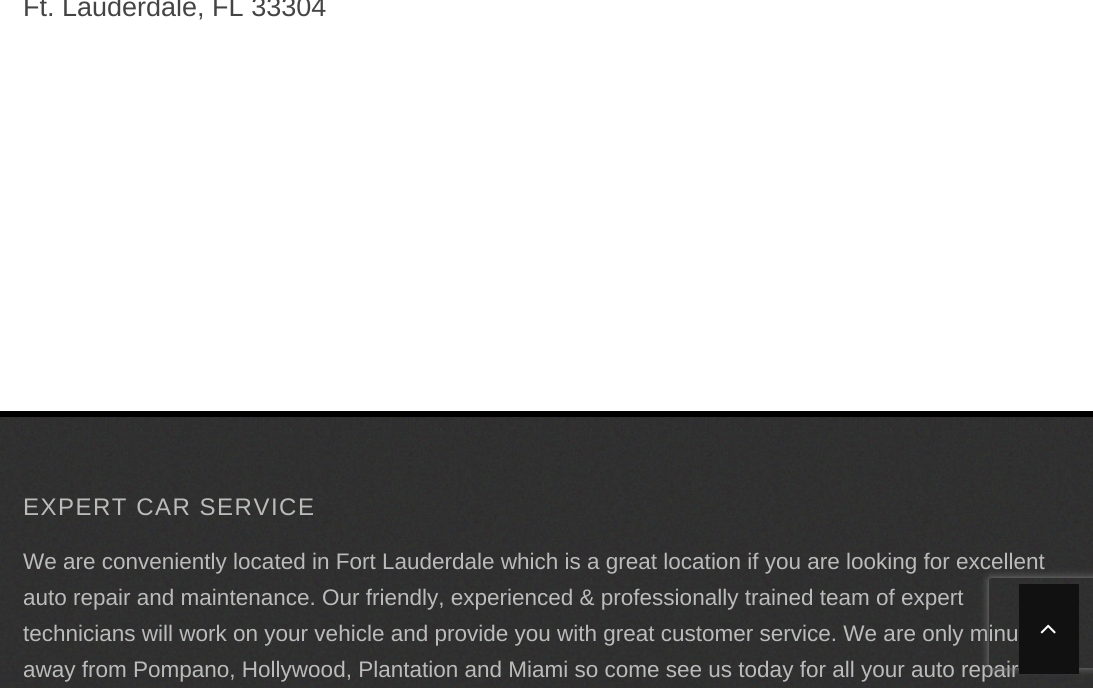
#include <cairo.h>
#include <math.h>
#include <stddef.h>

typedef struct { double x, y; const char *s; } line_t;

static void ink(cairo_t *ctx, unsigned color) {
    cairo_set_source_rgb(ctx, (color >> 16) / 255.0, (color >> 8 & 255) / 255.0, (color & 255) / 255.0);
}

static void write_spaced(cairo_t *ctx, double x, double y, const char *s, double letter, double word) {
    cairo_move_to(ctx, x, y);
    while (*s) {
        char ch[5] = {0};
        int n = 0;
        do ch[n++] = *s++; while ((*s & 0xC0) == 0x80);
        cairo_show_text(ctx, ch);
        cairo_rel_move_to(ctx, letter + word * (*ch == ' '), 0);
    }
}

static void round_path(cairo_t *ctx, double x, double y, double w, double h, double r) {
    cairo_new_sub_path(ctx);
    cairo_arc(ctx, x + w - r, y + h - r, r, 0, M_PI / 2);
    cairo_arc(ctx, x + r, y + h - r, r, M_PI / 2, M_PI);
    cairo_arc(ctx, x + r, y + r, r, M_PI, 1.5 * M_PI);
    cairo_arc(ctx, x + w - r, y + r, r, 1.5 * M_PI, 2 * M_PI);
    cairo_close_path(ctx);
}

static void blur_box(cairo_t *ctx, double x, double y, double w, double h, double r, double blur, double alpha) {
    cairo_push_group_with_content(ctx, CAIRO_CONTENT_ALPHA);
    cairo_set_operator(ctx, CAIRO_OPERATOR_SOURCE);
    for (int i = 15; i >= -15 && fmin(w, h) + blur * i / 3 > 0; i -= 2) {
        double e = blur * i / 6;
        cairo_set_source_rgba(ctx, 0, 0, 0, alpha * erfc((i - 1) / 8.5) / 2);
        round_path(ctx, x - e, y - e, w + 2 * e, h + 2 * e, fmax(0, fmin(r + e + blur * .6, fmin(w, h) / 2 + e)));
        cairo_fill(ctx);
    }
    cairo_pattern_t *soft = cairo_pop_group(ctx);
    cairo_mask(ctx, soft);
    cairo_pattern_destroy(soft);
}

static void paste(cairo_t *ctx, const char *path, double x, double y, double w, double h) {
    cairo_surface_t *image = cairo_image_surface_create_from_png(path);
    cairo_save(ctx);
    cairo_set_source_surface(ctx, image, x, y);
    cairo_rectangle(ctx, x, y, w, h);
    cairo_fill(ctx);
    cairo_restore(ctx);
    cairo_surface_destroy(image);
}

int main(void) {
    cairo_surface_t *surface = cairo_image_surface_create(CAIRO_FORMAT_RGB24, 1093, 688);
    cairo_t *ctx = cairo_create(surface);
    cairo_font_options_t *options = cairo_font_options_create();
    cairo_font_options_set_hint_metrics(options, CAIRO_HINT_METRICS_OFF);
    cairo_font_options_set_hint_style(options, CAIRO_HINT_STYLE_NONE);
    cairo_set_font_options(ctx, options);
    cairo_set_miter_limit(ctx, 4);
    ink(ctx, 0xFFFFFF);
    cairo_paint(ctx);
    cairo_select_font_face(ctx, "Liberation Sans", CAIRO_FONT_SLANT_NORMAL, CAIRO_FONT_WEIGHT_NORMAL);
    cairo_set_font_size(ctx, 27);
    ink(ctx, 0x444444);
    cairo_move_to(ctx, 23, 16);
    cairo_show_text(ctx, "Ft. Lauderdale, FL 33304");
    paste(ctx, "media/1.png", 0, 417, 1093, 271);
    ink(ctx, 0x000000);
    cairo_rectangle(ctx, 0, 411, 1093, 6);
    cairo_fill(ctx);
    cairo_set_font_size(ctx, 24);
    ink(ctx, 0xBBBBBB);
    write_spaced(ctx, 23, 515, "EXPERT CAR SERVICE", 1.5, 0);
    cairo_set_font_size(ctx, 22.5);
    {
        static const line_t items[] = {
            {23, 569, "We are conveniently located in Fort Lauderdale which is a great location if you are looking for excellent"},
            {23, 605, "auto repair and maintenance. Our friendly, experienced & professionally trained team of expert"},
            {23, 641, "technicians will work on your vehicle and provide you with great customer service. We are only minu"},
            {23, 677, "away from Pompano, Hollywood, Plantation and Miami so come see us today for all your auto repair"},
        };
        for (size_t i = 0; i < sizeof items / sizeof *items; i++) {
            cairo_move_to(ctx, items[i].x, items[i].y);
            cairo_show_text(ctx, items[i].s);
        }
    }
    cairo_save(ctx);
    cairo_set_fill_rule(ctx, CAIRO_FILL_RULE_EVEN_ODD);
    cairo_new_path(ctx);
    cairo_move_to(ctx, 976, 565);
    cairo_line_to(ctx, 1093, 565);
    cairo_line_to(ctx, 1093, 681);
    cairo_line_to(ctx, 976, 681);
    cairo_close_path(ctx);
    cairo_move_to(ctx, 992, 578);
    cairo_line_to(ctx, 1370, 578);
    cairo_curve_to(ctx, 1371.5, 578, 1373, 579.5, 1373, 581);
    cairo_line_to(ctx, 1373, 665);
    cairo_curve_to(ctx, 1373, 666.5, 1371.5, 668, 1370, 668);
    cairo_line_to(ctx, 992, 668);
    cairo_curve_to(ctx, 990.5, 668, 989, 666.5, 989, 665);
    cairo_line_to(ctx, 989, 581);
    cairo_curve_to(ctx, 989, 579.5, 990.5, 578, 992, 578);
    cairo_close_path(ctx);
    cairo_clip(ctx);
    ink(ctx, 0x808080);
    blur_box(ctx, 989, 578, 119, 90, 3, 4, 1);
    cairo_restore(ctx);
    ink(ctx, 0x111111);
    cairo_rectangle(ctx, 1019, 584, 60, 90);
    cairo_fill(ctx);
    paste(ctx, "media/2.png", 1040, 624, 16, 10);
    cairo_surface_write_to_png(surface, "image.png");
    cairo_font_options_destroy(options);
    cairo_destroy(ctx);
    cairo_surface_destroy(surface);
    return 0;
}
